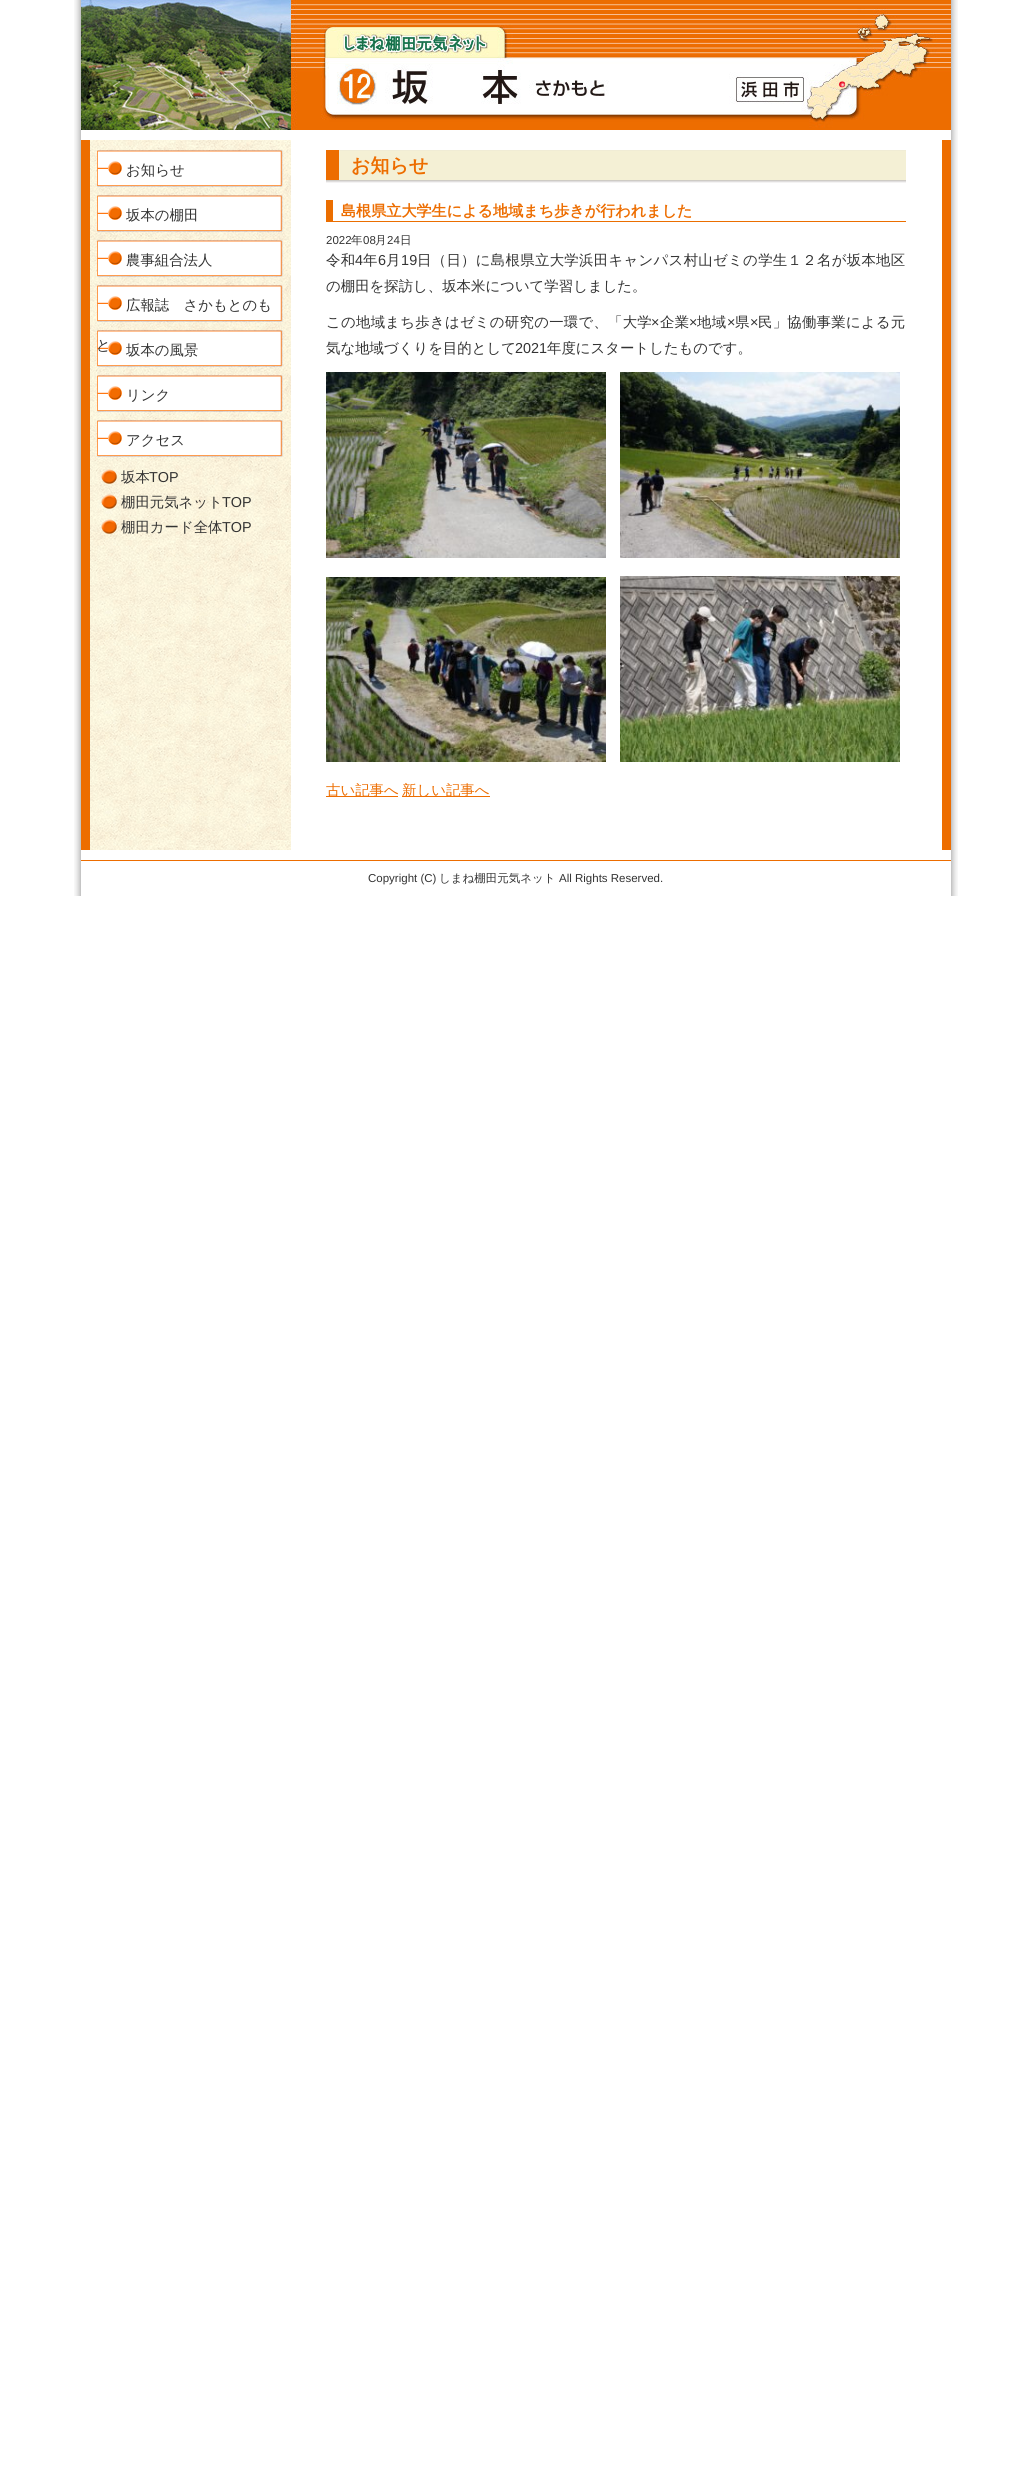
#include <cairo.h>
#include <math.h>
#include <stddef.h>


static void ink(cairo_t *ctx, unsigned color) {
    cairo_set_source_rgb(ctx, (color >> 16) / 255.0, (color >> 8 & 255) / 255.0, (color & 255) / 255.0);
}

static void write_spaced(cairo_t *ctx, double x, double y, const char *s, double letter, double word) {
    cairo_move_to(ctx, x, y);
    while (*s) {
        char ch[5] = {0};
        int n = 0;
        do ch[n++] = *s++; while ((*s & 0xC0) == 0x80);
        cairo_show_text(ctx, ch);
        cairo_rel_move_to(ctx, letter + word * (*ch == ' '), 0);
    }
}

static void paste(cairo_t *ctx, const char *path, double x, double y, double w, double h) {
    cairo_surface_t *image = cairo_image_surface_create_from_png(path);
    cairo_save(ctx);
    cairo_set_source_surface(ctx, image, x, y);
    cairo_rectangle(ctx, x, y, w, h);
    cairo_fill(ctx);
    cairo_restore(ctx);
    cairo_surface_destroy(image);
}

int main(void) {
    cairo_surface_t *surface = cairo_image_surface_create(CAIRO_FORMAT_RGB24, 1031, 2485);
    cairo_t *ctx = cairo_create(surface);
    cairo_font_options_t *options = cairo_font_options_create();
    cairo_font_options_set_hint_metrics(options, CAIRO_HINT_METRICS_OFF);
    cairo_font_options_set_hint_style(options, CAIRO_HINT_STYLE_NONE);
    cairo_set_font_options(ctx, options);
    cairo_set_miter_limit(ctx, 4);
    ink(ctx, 0xFFFFFF);
    cairo_paint(ctx);
    paste(ctx, "media/1.png", 74, 0, 884, 896);
    paste(ctx, "media/2.png", 81, 0, 870, 130);
    paste(ctx, "media/3.png", 81, 140, 870, 710);
    paste(ctx, "media/4.png", 97, 150, 186, 37);
    cairo_select_font_face(ctx, "WenQuanYi Zen Hei Medium", CAIRO_FONT_SLANT_NORMAL, CAIRO_FONT_WEIGHT_NORMAL);
    cairo_set_font_size(ctx, 14.4);
    ink(ctx, 0x333333);
    cairo_move_to(ctx, 126, 175);
    cairo_show_text(ctx, "お知らせ");
    paste(ctx, "media/5.png", 97, 195, 186, 37);
    cairo_move_to(ctx, 126, 220);
    cairo_show_text(ctx, "坂本の棚田");
    paste(ctx, "media/6.png", 97, 240, 186, 37);
    cairo_move_to(ctx, 126, 265);
    cairo_show_text(ctx, "農事組合法人");
    paste(ctx, "media/7.png", 97, 285, 186, 37);
    cairo_move_to(ctx, 126, 310);
    cairo_show_text(ctx, "広報誌　さかもとのも");
    paste(ctx, "media/8.png", 97, 330, 186, 37);
    cairo_move_to(ctx, 96, 350);
    cairo_show_text(ctx, "と");
    cairo_move_to(ctx, 126, 355);
    cairo_show_text(ctx, "坂本の風景");
    paste(ctx, "media/9.png", 97, 375, 186, 37);
    cairo_move_to(ctx, 126, 400);
    cairo_show_text(ctx, "リンク");
    paste(ctx, "media/10.png", 97, 420, 186, 37);
    cairo_move_to(ctx, 126, 445);
    cairo_show_text(ctx, "アクセス");
    paste(ctx, "media/11.png", 101, 469, 16, 15);
    cairo_move_to(ctx, 121, 482);
    cairo_show_text(ctx, "坂本");
    cairo_select_font_face(ctx, "Liberation Sans", CAIRO_FONT_SLANT_NORMAL, CAIRO_FONT_WEIGHT_NORMAL);
    cairo_move_to(ctx, 149, 482);
    cairo_show_text(ctx, "TOP");
    paste(ctx, "media/12.png", 101, 494, 16, 15);
    cairo_select_font_face(ctx, "WenQuanYi Zen Hei Medium", CAIRO_FONT_SLANT_NORMAL, CAIRO_FONT_WEIGHT_NORMAL);
    cairo_move_to(ctx, 121, 507);
    cairo_show_text(ctx, "棚田元気ネット");
    cairo_select_font_face(ctx, "Liberation Sans", CAIRO_FONT_SLANT_NORMAL, CAIRO_FONT_WEIGHT_NORMAL);
    cairo_move_to(ctx, 222, 507);
    cairo_show_text(ctx, "TOP");
    paste(ctx, "media/13.png", 101, 519, 16, 15);
    cairo_select_font_face(ctx, "WenQuanYi Zen Hei Medium", CAIRO_FONT_SLANT_NORMAL, CAIRO_FONT_WEIGHT_NORMAL);
    cairo_move_to(ctx, 121, 532);
    cairo_show_text(ctx, "棚田カード全体");
    cairo_select_font_face(ctx, "Liberation Sans", CAIRO_FONT_SLANT_NORMAL, CAIRO_FONT_WEIGHT_NORMAL);
    cairo_move_to(ctx, 222, 532);
    cairo_show_text(ctx, "TOP");
    paste(ctx, "media/14.png", 326, 150, 580, 33);
    cairo_select_font_face(ctx, "WenQuanYi Zen Hei", CAIRO_FONT_SLANT_NORMAL, CAIRO_FONT_WEIGHT_BOLD);
    cairo_set_font_size(ctx, 19);
    ink(ctx, 0xED6D00);
    cairo_move_to(ctx, 351, 172);
    cairo_show_text(ctx, "お知らせ");
    paste(ctx, "media/15.png", 326, 200, 580, 22);
    cairo_set_font_size(ctx, 15.1);
    cairo_move_to(ctx, 341, 216);
    cairo_show_text(ctx, "島根県立大学生による地域まち歩きが行われました");
    cairo_select_font_face(ctx, "Liberation Sans", CAIRO_FONT_SLANT_NORMAL, CAIRO_FONT_WEIGHT_NORMAL);
    cairo_set_font_size(ctx, 11.5);
    ink(ctx, 0x333333);
    cairo_move_to(ctx, 326, 244);
    cairo_show_text(ctx, "2022");
    cairo_select_font_face(ctx, "WenQuanYi Zen Hei Medium", CAIRO_FONT_SLANT_NORMAL, CAIRO_FONT_WEIGHT_NORMAL);
    cairo_move_to(ctx, 351, 244);
    cairo_show_text(ctx, "年");
    cairo_select_font_face(ctx, "Liberation Sans", CAIRO_FONT_SLANT_NORMAL, CAIRO_FONT_WEIGHT_NORMAL);
    cairo_move_to(ctx, 363, 244);
    cairo_show_text(ctx, "08");
    cairo_select_font_face(ctx, "WenQuanYi Zen Hei Medium", CAIRO_FONT_SLANT_NORMAL, CAIRO_FONT_WEIGHT_NORMAL);
    cairo_move_to(ctx, 375, 244);
    cairo_show_text(ctx, "月");
    cairo_select_font_face(ctx, "Liberation Sans", CAIRO_FONT_SLANT_NORMAL, CAIRO_FONT_WEIGHT_NORMAL);
    cairo_move_to(ctx, 387, 244);
    cairo_show_text(ctx, "24");
    cairo_select_font_face(ctx, "WenQuanYi Zen Hei Medium", CAIRO_FONT_SLANT_NORMAL, CAIRO_FONT_WEIGHT_NORMAL);
    cairo_move_to(ctx, 400, 244);
    cairo_show_text(ctx, "日");
    cairo_set_font_size(ctx, 14.4);
    write_spaced(ctx, 326, 265, "令和", 0.3, 0);
    cairo_select_font_face(ctx, "Liberation Sans", CAIRO_FONT_SLANT_NORMAL, CAIRO_FONT_WEIGHT_NORMAL);
    write_spaced(ctx, 355, 265, "4", 0.3, 0);
    cairo_select_font_face(ctx, "WenQuanYi Zen Hei Medium", CAIRO_FONT_SLANT_NORMAL, CAIRO_FONT_WEIGHT_NORMAL);
    write_spaced(ctx, 363, 265, "年", 0.3, 0);
    cairo_select_font_face(ctx, "Liberation Sans", CAIRO_FONT_SLANT_NORMAL, CAIRO_FONT_WEIGHT_NORMAL);
    write_spaced(ctx, 378, 265, "6", 0.3, 0);
    cairo_select_font_face(ctx, "WenQuanYi Zen Hei Medium", CAIRO_FONT_SLANT_NORMAL, CAIRO_FONT_WEIGHT_NORMAL);
    write_spaced(ctx, 386, 265, "月", 0.3, 0);
    cairo_select_font_face(ctx, "Liberation Sans", CAIRO_FONT_SLANT_NORMAL, CAIRO_FONT_WEIGHT_NORMAL);
    write_spaced(ctx, 401, 265, "19", 0.3, 0);
    cairo_select_font_face(ctx, "WenQuanYi Zen Hei Medium", CAIRO_FONT_SLANT_NORMAL, CAIRO_FONT_WEIGHT_NORMAL);
    write_spaced(ctx, 417, 265, "日（日）に島根県立大学浜田キャンパス村山ゼミの学生１２名が坂本地区", 0.3, 0);
    cairo_move_to(ctx, 326, 291);
    cairo_show_text(ctx, "の棚田を探訪し、坂本米について学習しました。");
    write_spaced(ctx, 326, 327, "この地域まち歩きはゼミの研究の一環で、「大学", 0.25, 0);
    cairo_select_font_face(ctx, "Liberation Sans", CAIRO_FONT_SLANT_NORMAL, CAIRO_FONT_WEIGHT_NORMAL);
    write_spaced(ctx, 651, 327, "×", 0.25, 0);
    cairo_select_font_face(ctx, "WenQuanYi Zen Hei Medium", CAIRO_FONT_SLANT_NORMAL, CAIRO_FONT_WEIGHT_NORMAL);
    write_spaced(ctx, 660, 327, "企業", 0.25, 0);
    cairo_select_font_face(ctx, "Liberation Sans", CAIRO_FONT_SLANT_NORMAL, CAIRO_FONT_WEIGHT_NORMAL);
    write_spaced(ctx, 689, 327, "×", 0.25, 0);
    cairo_select_font_face(ctx, "WenQuanYi Zen Hei Medium", CAIRO_FONT_SLANT_NORMAL, CAIRO_FONT_WEIGHT_NORMAL);
    write_spaced(ctx, 697, 327, "地域", 0.25, 0);
    cairo_select_font_face(ctx, "Liberation Sans", CAIRO_FONT_SLANT_NORMAL, CAIRO_FONT_WEIGHT_NORMAL);
    write_spaced(ctx, 727, 327, "×", 0.25, 0);
    cairo_select_font_face(ctx, "WenQuanYi Zen Hei Medium", CAIRO_FONT_SLANT_NORMAL, CAIRO_FONT_WEIGHT_NORMAL);
    write_spaced(ctx, 735, 327, "県", 0.25, 0);
    cairo_select_font_face(ctx, "Liberation Sans", CAIRO_FONT_SLANT_NORMAL, CAIRO_FONT_WEIGHT_NORMAL);
    write_spaced(ctx, 750, 327, "×", 0.25, 0);
    cairo_select_font_face(ctx, "WenQuanYi Zen Hei Medium", CAIRO_FONT_SLANT_NORMAL, CAIRO_FONT_WEIGHT_NORMAL);
    write_spaced(ctx, 758, 327, "民」協働事業による元", 0.25, 0);
    cairo_move_to(ctx, 326, 353);
    cairo_show_text(ctx, "気な地域づくりを目的として");
    cairo_select_font_face(ctx, "Liberation Sans", CAIRO_FONT_SLANT_NORMAL, CAIRO_FONT_WEIGHT_NORMAL);
    cairo_move_to(ctx, 515, 353);
    cairo_show_text(ctx, "2021");
    cairo_select_font_face(ctx, "WenQuanYi Zen Hei Medium", CAIRO_FONT_SLANT_NORMAL, CAIRO_FONT_WEIGHT_NORMAL);
    cairo_move_to(ctx, 547, 353);
    cairo_show_text(ctx, "年度にスタートしたものです。");
    paste(ctx, "media/16.png", 326, 372, 280, 186);
    paste(ctx, "media/17.png", 620, 372, 280, 186);
    paste(ctx, "media/18.png", 326, 577, 280, 185);
    paste(ctx, "media/19.png", 620, 576, 280, 186);
    ink(ctx, 0xED6D00);
    cairo_rectangle(ctx, 326, 796, 72, 1);
    cairo_fill(ctx);
    cairo_move_to(ctx, 326, 795);
    cairo_show_text(ctx, "古い記事へ");
    cairo_rectangle(ctx, 402, 796, 88, 1);
    cairo_fill(ctx);
    cairo_move_to(ctx, 402, 795);
    cairo_show_text(ctx, "新しい記事へ");
    cairo_rectangle(ctx, 81, 860, 870, 1);
    cairo_fill(ctx);
    cairo_select_font_face(ctx, "Liberation Sans", CAIRO_FONT_SLANT_NORMAL, CAIRO_FONT_WEIGHT_NORMAL);
    cairo_set_font_size(ctx, 11.5);
    ink(ctx, 0x333333);
    cairo_move_to(ctx, 368, 882);
    cairo_show_text(ctx, "Copyright (C)");
    cairo_select_font_face(ctx, "WenQuanYi Zen Hei Medium", CAIRO_FONT_SLANT_NORMAL, CAIRO_FONT_WEIGHT_NORMAL);
    cairo_move_to(ctx, 439, 882);
    cairo_show_text(ctx, "しまね棚田元気ネット");
    cairo_select_font_face(ctx, "Liberation Sans", CAIRO_FONT_SLANT_NORMAL, CAIRO_FONT_WEIGHT_NORMAL);
    cairo_move_to(ctx, 559, 882);
    cairo_show_text(ctx, "All Rights Reserved.");
    cairo_surface_write_to_png(surface, "image.png");
    cairo_font_options_destroy(options);
    cairo_destroy(ctx);
    cairo_surface_destroy(surface);
    return 0;
}
